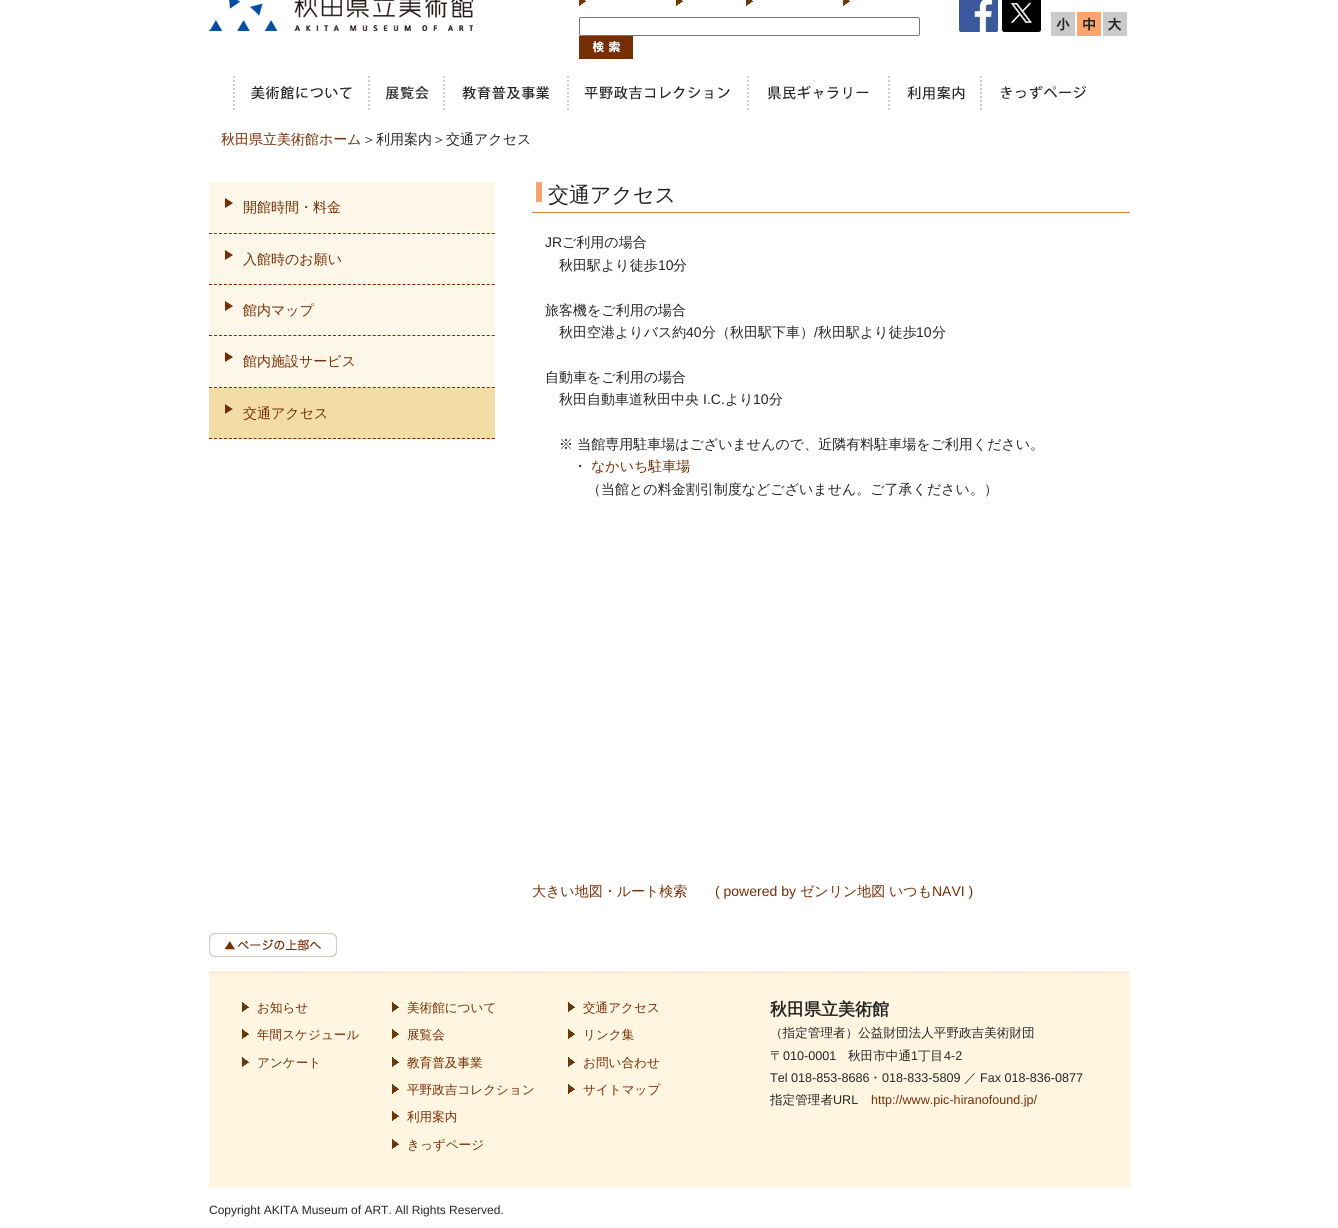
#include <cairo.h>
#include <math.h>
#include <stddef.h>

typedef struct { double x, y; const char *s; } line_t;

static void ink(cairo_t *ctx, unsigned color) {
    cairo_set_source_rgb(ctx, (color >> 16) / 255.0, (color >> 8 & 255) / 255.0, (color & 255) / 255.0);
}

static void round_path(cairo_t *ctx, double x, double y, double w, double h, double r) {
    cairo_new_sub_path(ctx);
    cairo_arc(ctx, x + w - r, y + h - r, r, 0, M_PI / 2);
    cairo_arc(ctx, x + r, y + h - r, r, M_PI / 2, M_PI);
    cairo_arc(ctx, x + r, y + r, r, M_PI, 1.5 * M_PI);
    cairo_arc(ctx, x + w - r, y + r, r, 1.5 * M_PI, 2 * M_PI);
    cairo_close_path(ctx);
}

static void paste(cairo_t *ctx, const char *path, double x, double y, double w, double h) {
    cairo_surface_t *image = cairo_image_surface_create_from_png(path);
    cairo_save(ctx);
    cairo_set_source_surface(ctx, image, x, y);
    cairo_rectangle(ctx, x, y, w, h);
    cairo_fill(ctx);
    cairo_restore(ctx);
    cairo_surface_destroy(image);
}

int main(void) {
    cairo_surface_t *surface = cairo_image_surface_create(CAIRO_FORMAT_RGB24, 1338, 1228);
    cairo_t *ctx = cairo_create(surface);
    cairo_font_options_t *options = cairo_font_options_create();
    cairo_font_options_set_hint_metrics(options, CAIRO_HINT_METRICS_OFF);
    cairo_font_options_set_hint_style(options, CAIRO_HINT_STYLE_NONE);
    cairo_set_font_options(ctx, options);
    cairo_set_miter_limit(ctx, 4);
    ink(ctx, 0xFFFFFF);
    cairo_paint(ctx);
    paste(ctx, "media/1.png", 209, 0, 264, 31);
    paste(ctx, "media/2.png", 579, 0, 7, 6);
    paste(ctx, "media/2.png", 676, 0, 7, 6);
    paste(ctx, "media/2.png", 746, 0, 7, 6);
    paste(ctx, "media/2.png", 843, 0, 7, 6);
    round_path(ctx, 579.5, 17.5, 340, 18, 1.5);
    ink(ctx, 0x767676);
    cairo_set_line_width(ctx, 1);
    cairo_stroke(ctx);
    paste(ctx, "media/3.png", 579, 36, 54, 23);
    paste(ctx, "media/4.png", 959, 0, 39, 32);
    paste(ctx, "media/5.png", 1002, 0, 39, 32);
    paste(ctx, "media/6.png", 1051, 12, 24, 24);
    paste(ctx, "media/7.png", 1077, 12, 24, 24);
    paste(ctx, "media/8.png", 1103, 12, 24, 24);
    cairo_new_path(ctx);
    cairo_move_to(ctx, 234, 76);
    cairo_line_to(ctx, 234, 110);
    ink(ctx, 0xCECECD);
    cairo_set_line_width(ctx, 2);
    cairo_set_dash(ctx, (double[]){2, 2}, 2, 0);
    cairo_stroke(ctx);
    paste(ctx, "media/9.png", 251, 84, 103, 16);
    cairo_new_path(ctx);
    cairo_move_to(ctx, 369, 76);
    cairo_line_to(ctx, 369, 110);
    cairo_stroke(ctx);
    paste(ctx, "media/10.png", 385, 84, 45, 16);
    cairo_new_path(ctx);
    cairo_move_to(ctx, 444, 76);
    cairo_line_to(ctx, 444, 110);
    cairo_stroke(ctx);
    paste(ctx, "media/11.png", 461, 84, 88, 16);
    cairo_new_path(ctx);
    cairo_move_to(ctx, 568, 76);
    cairo_line_to(ctx, 568, 110);
    cairo_stroke(ctx);
    paste(ctx, "media/12.png", 581, 84, 152, 16);
    cairo_new_path(ctx);
    cairo_move_to(ctx, 748, 76);
    cairo_line_to(ctx, 748, 110);
    cairo_stroke(ctx);
    paste(ctx, "media/13.png", 765, 84, 104, 16);
    cairo_new_path(ctx);
    cairo_move_to(ctx, 889, 76);
    cairo_line_to(ctx, 889, 110);
    cairo_stroke(ctx);
    paste(ctx, "media/14.png", 906, 84, 60, 16);
    cairo_new_path(ctx);
    cairo_move_to(ctx, 981, 76);
    cairo_line_to(ctx, 981, 110);
    cairo_stroke(ctx);
    paste(ctx, "media/15.png", 999, 84, 88, 16);
    cairo_select_font_face(ctx, "WenQuanYi Zen Hei Medium", CAIRO_FONT_SLANT_NORMAL, CAIRO_FONT_WEIGHT_NORMAL);
    cairo_set_font_size(ctx, 14);
    ink(ctx, 0x762E05);
    cairo_move_to(ctx, 221, 144);
    cairo_show_text(ctx, "秋田県立美術館ホーム");
    ink(ctx, 0x262626);
    cairo_move_to(ctx, 362, 144);
    cairo_show_text(ctx, "＞利用案内＞交通アクセス");
    ink(ctx, 0xFCF7E9);
    cairo_rectangle(ctx, 209, 182, 286, 206);
    cairo_fill(ctx);
    paste(ctx, "media/16.png", 225, 198, 8, 10);
    cairo_new_path(ctx);
    cairo_move_to(ctx, 209, 233.5);
    cairo_line_to(ctx, 495, 233.5);
    ink(ctx, 0x762E05);
    cairo_set_line_width(ctx, 1);
    cairo_set_dash(ctx, (double[]){3, 1.96}, 2, 0);
    cairo_stroke(ctx);
    cairo_move_to(ctx, 243, 212);
    cairo_show_text(ctx, "開館時間・料金");
    paste(ctx, "media/16.png", 225, 250, 8, 10);
    cairo_new_path(ctx);
    cairo_move_to(ctx, 209, 284.5);
    cairo_line_to(ctx, 495, 284.5);
    cairo_stroke(ctx);
    cairo_move_to(ctx, 243, 264);
    cairo_show_text(ctx, "入館時のお願い");
    paste(ctx, "media/16.png", 225, 301, 8, 10);
    cairo_new_path(ctx);
    cairo_move_to(ctx, 209, 335.5);
    cairo_line_to(ctx, 495, 335.5);
    cairo_stroke(ctx);
    cairo_move_to(ctx, 243, 315);
    cairo_show_text(ctx, "館内マップ");
    paste(ctx, "media/16.png", 225, 352, 8, 10);
    cairo_new_path(ctx);
    cairo_move_to(ctx, 209, 387.5);
    cairo_line_to(ctx, 495, 387.5);
    cairo_stroke(ctx);
    cairo_move_to(ctx, 243, 366);
    cairo_show_text(ctx, "館内施設サービス");
    ink(ctx, 0xF4DDA5);
    cairo_rectangle(ctx, 209, 388, 286, 51);
    cairo_fill(ctx);
    paste(ctx, "media/17.png", 225, 404, 8, 10);
    cairo_new_path(ctx);
    cairo_move_to(ctx, 209, 438.5);
    cairo_line_to(ctx, 495, 438.5);
    ink(ctx, 0x762E05);
    cairo_stroke(ctx);
    cairo_move_to(ctx, 243, 418);
    cairo_show_text(ctx, "交通アクセス");
    ink(ctx, 0xFBA46B);
    cairo_rectangle(ctx, 536, 182, 6, 20);
    cairo_fill(ctx);
    ink(ctx, 0xE08030);
    cairo_rectangle(ctx, 532, 212, 598, 1);
    cairo_fill(ctx);
    cairo_set_font_size(ctx, 21);
    ink(ctx, 0x262626);
    cairo_move_to(ctx, 548, 202);
    cairo_show_text(ctx, "交通アクセス");
    cairo_select_font_face(ctx, "Liberation Sans", CAIRO_FONT_SLANT_NORMAL, CAIRO_FONT_WEIGHT_NORMAL);
    cairo_set_font_size(ctx, 14);
    cairo_move_to(ctx, 545, 247);
    cairo_show_text(ctx, "JR");
    cairo_select_font_face(ctx, "WenQuanYi Zen Hei Medium", CAIRO_FONT_SLANT_NORMAL, CAIRO_FONT_WEIGHT_NORMAL);
    cairo_move_to(ctx, 562, 247);
    cairo_show_text(ctx, "ご利用の場合");
    cairo_move_to(ctx, 559, 270);
    cairo_show_text(ctx, "秋田駅より徒歩");
    cairo_select_font_face(ctx, "Liberation Sans", CAIRO_FONT_SLANT_NORMAL, CAIRO_FONT_WEIGHT_NORMAL);
    cairo_move_to(ctx, 658, 270);
    cairo_show_text(ctx, "10");
    cairo_select_font_face(ctx, "WenQuanYi Zen Hei Medium", CAIRO_FONT_SLANT_NORMAL, CAIRO_FONT_WEIGHT_NORMAL);
    {
        static const line_t items[] = {
            {673, 270, "分"},
            {545, 315, "旅客機をご利用の場合"},
            {559, 337, "秋田空港よりバス約"},
        };
        for (size_t i = 0; i < sizeof items / sizeof *items; i++) {
            cairo_move_to(ctx, items[i].x, items[i].y);
            cairo_show_text(ctx, items[i].s);
        }
    }
    cairo_select_font_face(ctx, "Liberation Sans", CAIRO_FONT_SLANT_NORMAL, CAIRO_FONT_WEIGHT_NORMAL);
    cairo_move_to(ctx, 686, 337);
    cairo_show_text(ctx, "40");
    cairo_select_font_face(ctx, "WenQuanYi Zen Hei Medium", CAIRO_FONT_SLANT_NORMAL, CAIRO_FONT_WEIGHT_NORMAL);
    cairo_move_to(ctx, 702, 337);
    cairo_show_text(ctx, "分（秋田駅下車）");
    cairo_select_font_face(ctx, "Liberation Sans", CAIRO_FONT_SLANT_NORMAL, CAIRO_FONT_WEIGHT_NORMAL);
    cairo_move_to(ctx, 814, 337);
    cairo_show_text(ctx, "/");
    cairo_select_font_face(ctx, "WenQuanYi Zen Hei Medium", CAIRO_FONT_SLANT_NORMAL, CAIRO_FONT_WEIGHT_NORMAL);
    cairo_move_to(ctx, 818, 337);
    cairo_show_text(ctx, "秋田駅より徒歩");
    cairo_select_font_face(ctx, "Liberation Sans", CAIRO_FONT_SLANT_NORMAL, CAIRO_FONT_WEIGHT_NORMAL);
    cairo_move_to(ctx, 916, 337);
    cairo_show_text(ctx, "10");
    cairo_select_font_face(ctx, "WenQuanYi Zen Hei Medium", CAIRO_FONT_SLANT_NORMAL, CAIRO_FONT_WEIGHT_NORMAL);
    {
        static const line_t items[] = {
            {932, 337, "分"},
            {545, 382, "自動車をご利用の場合"},
            {559, 404, "秋田自動車道秋田中央"},
        };
        for (size_t i = 0; i < sizeof items / sizeof *items; i++) {
            cairo_move_to(ctx, items[i].x, items[i].y);
            cairo_show_text(ctx, items[i].s);
        }
    }
    cairo_select_font_face(ctx, "Liberation Sans", CAIRO_FONT_SLANT_NORMAL, CAIRO_FONT_WEIGHT_NORMAL);
    cairo_move_to(ctx, 703, 404);
    cairo_show_text(ctx, "I.C.");
    cairo_select_font_face(ctx, "WenQuanYi Zen Hei Medium", CAIRO_FONT_SLANT_NORMAL, CAIRO_FONT_WEIGHT_NORMAL);
    cairo_move_to(ctx, 725, 404);
    cairo_show_text(ctx, "より");
    cairo_select_font_face(ctx, "Liberation Sans", CAIRO_FONT_SLANT_NORMAL, CAIRO_FONT_WEIGHT_NORMAL);
    cairo_move_to(ctx, 753, 404);
    cairo_show_text(ctx, "10");
    cairo_select_font_face(ctx, "WenQuanYi Zen Hei Medium", CAIRO_FONT_SLANT_NORMAL, CAIRO_FONT_WEIGHT_NORMAL);
    {
        static const line_t items[] = {
            {769, 404, "分"},
            {559, 449, "※ 当館専用駐車場はございませんので、近隣有料駐車場をご利用ください。"},
            {573, 471, "・"},
        };
        for (size_t i = 0; i < sizeof items / sizeof *items; i++) {
            cairo_move_to(ctx, items[i].x, items[i].y);
            cairo_show_text(ctx, items[i].s);
        }
    }
    ink(ctx, 0x762E05);
    cairo_move_to(ctx, 591, 471);
    cairo_show_text(ctx, "なかいち駐車場");
    ink(ctx, 0x262626);
    cairo_move_to(ctx, 587, 494);
    cairo_show_text(ctx, "（当館との料金割引制度などございません。ご了承ください。）");
    ink(ctx, 0x762E05);
    cairo_move_to(ctx, 532, 896);
    cairo_show_text(ctx, "大きい地図・ルート検索");
    cairo_select_font_face(ctx, "Liberation Sans", CAIRO_FONT_SLANT_NORMAL, CAIRO_FONT_WEIGHT_NORMAL);
    cairo_move_to(ctx, 715, 896);
    cairo_show_text(ctx, "( powered by");
    cairo_select_font_face(ctx, "WenQuanYi Zen Hei Medium", CAIRO_FONT_SLANT_NORMAL, CAIRO_FONT_WEIGHT_NORMAL);
    cairo_move_to(ctx, 800, 896);
    cairo_show_text(ctx, "ゼンリン地図");
    cairo_move_to(ctx, 889, 896);
    cairo_show_text(ctx, "いつも");
    cairo_select_font_face(ctx, "Liberation Sans", CAIRO_FONT_SLANT_NORMAL, CAIRO_FONT_WEIGHT_NORMAL);
    cairo_move_to(ctx, 932, 896);
    cairo_show_text(ctx, "NAVI )");
    paste(ctx, "media/18.png", 209, 933, 128, 24);
    ink(ctx, 0xFFF5E0);
    cairo_rectangle(ctx, 209, 974, 921, 213);
    cairo_fill(ctx);
    paste(ctx, "media/19.png", 209, 971, 921, 3);
    paste(ctx, "media/20.png", 242, 1002, 7, 10);
    cairo_select_font_face(ctx, "WenQuanYi Zen Hei Medium", CAIRO_FONT_SLANT_NORMAL, CAIRO_FONT_WEIGHT_NORMAL);
    cairo_set_font_size(ctx, 12.6);
    ink(ctx, 0x762E05);
    cairo_move_to(ctx, 257, 1012);
    cairo_show_text(ctx, "お知らせ");
    paste(ctx, "media/20.png", 242, 1029, 7, 10);
    cairo_move_to(ctx, 257, 1039);
    cairo_show_text(ctx, "年間スケジュール");
    paste(ctx, "media/20.png", 242, 1057, 7, 10);
    cairo_move_to(ctx, 257, 1067);
    cairo_show_text(ctx, "アンケート");
    paste(ctx, "media/20.png", 392, 1002, 7, 10);
    cairo_move_to(ctx, 407, 1012);
    cairo_show_text(ctx, "美術館について");
    paste(ctx, "media/20.png", 392, 1029, 7, 10);
    cairo_move_to(ctx, 407, 1039);
    cairo_show_text(ctx, "展覧会");
    paste(ctx, "media/20.png", 392, 1057, 7, 10);
    cairo_move_to(ctx, 407, 1067);
    cairo_show_text(ctx, "教育普及事業");
    paste(ctx, "media/20.png", 392, 1084, 7, 10);
    cairo_move_to(ctx, 407, 1094);
    cairo_show_text(ctx, "平野政吉コレクション");
    paste(ctx, "media/20.png", 392, 1111, 7, 10);
    cairo_move_to(ctx, 407, 1121);
    cairo_show_text(ctx, "利用案内");
    paste(ctx, "media/20.png", 392, 1139, 7, 10);
    cairo_move_to(ctx, 407, 1149);
    cairo_show_text(ctx, "きっずページ");
    paste(ctx, "media/20.png", 568, 1002, 7, 10);
    cairo_move_to(ctx, 583, 1012);
    cairo_show_text(ctx, "交通アクセス");
    paste(ctx, "media/20.png", 568, 1029, 7, 10);
    cairo_move_to(ctx, 583, 1039);
    cairo_show_text(ctx, "リンク集");
    paste(ctx, "media/20.png", 568, 1057, 7, 10);
    cairo_move_to(ctx, 583, 1067);
    cairo_show_text(ctx, "お問い合わせ");
    paste(ctx, "media/20.png", 568, 1084, 7, 10);
    cairo_move_to(ctx, 583, 1094);
    cairo_show_text(ctx, "サイトマップ");
    cairo_select_font_face(ctx, "WenQuanYi Zen Hei", CAIRO_FONT_SLANT_NORMAL, CAIRO_FONT_WEIGHT_BOLD);
    cairo_set_font_size(ctx, 17);
    ink(ctx, 0x262626);
    cairo_move_to(ctx, 770, 1015);
    cairo_show_text(ctx, "秋田県立美術館");
    cairo_select_font_face(ctx, "WenQuanYi Zen Hei Medium", CAIRO_FONT_SLANT_NORMAL, CAIRO_FONT_WEIGHT_NORMAL);
    cairo_set_font_size(ctx, 12.6);
    cairo_move_to(ctx, 770, 1037);
    cairo_show_text(ctx, "（指定管理者）公益財団法人平野政吉美術財団");
    cairo_move_to(ctx, 770, 1060);
    cairo_show_text(ctx, "〒");
    cairo_select_font_face(ctx, "Liberation Sans", CAIRO_FONT_SLANT_NORMAL, CAIRO_FONT_WEIGHT_NORMAL);
    cairo_move_to(ctx, 783, 1060);
    cairo_show_text(ctx, "010-0001");
    cairo_select_font_face(ctx, "WenQuanYi Zen Hei Medium", CAIRO_FONT_SLANT_NORMAL, CAIRO_FONT_WEIGHT_NORMAL);
    cairo_move_to(ctx, 848, 1060);
    cairo_show_text(ctx, "秋田市中通");
    cairo_select_font_face(ctx, "Liberation Sans", CAIRO_FONT_SLANT_NORMAL, CAIRO_FONT_WEIGHT_NORMAL);
    cairo_move_to(ctx, 911, 1060);
    cairo_show_text(ctx, "1");
    cairo_select_font_face(ctx, "WenQuanYi Zen Hei Medium", CAIRO_FONT_SLANT_NORMAL, CAIRO_FONT_WEIGHT_NORMAL);
    cairo_move_to(ctx, 918, 1060);
    cairo_show_text(ctx, "丁目");
    cairo_select_font_face(ctx, "Liberation Sans", CAIRO_FONT_SLANT_NORMAL, CAIRO_FONT_WEIGHT_NORMAL);
    cairo_move_to(ctx, 944, 1060);
    cairo_show_text(ctx, "4-2");
    cairo_move_to(ctx, 770, 1082);
    cairo_show_text(ctx, "Tel 018-853-8686");
    cairo_select_font_face(ctx, "WenQuanYi Zen Hei Medium", CAIRO_FONT_SLANT_NORMAL, CAIRO_FONT_WEIGHT_NORMAL);
    cairo_move_to(ctx, 869, 1082);
    cairo_show_text(ctx, "・");
    cairo_select_font_face(ctx, "Liberation Sans", CAIRO_FONT_SLANT_NORMAL, CAIRO_FONT_WEIGHT_NORMAL);
    cairo_move_to(ctx, 882, 1082);
    cairo_show_text(ctx, "018-833-5809");
    cairo_select_font_face(ctx, "WenQuanYi Zen Hei Medium", CAIRO_FONT_SLANT_NORMAL, CAIRO_FONT_WEIGHT_NORMAL);
    cairo_move_to(ctx, 964, 1082);
    cairo_show_text(ctx, "／");
    cairo_select_font_face(ctx, "Liberation Sans", CAIRO_FONT_SLANT_NORMAL, CAIRO_FONT_WEIGHT_NORMAL);
    cairo_move_to(ctx, 980, 1082);
    cairo_show_text(ctx, "Fax 018-836-0877");
    cairo_select_font_face(ctx, "WenQuanYi Zen Hei Medium", CAIRO_FONT_SLANT_NORMAL, CAIRO_FONT_WEIGHT_NORMAL);
    cairo_move_to(ctx, 770, 1104);
    cairo_show_text(ctx, "指定管理者");
    cairo_select_font_face(ctx, "Liberation Sans", CAIRO_FONT_SLANT_NORMAL, CAIRO_FONT_WEIGHT_NORMAL);
    cairo_move_to(ctx, 833, 1104);
    cairo_show_text(ctx, "URL");
    ink(ctx, 0x762E05);
    cairo_move_to(ctx, 871, 1104);
    cairo_show_text(ctx, "http://www.pic-hiranofound.jp/");
    cairo_set_font_size(ctx, 12);
    ink(ctx, 0x262626);
    cairo_move_to(ctx, 209, 1214);
    cairo_show_text(ctx, "Copyright AKITA Museum of ART. All Rights Reserved.");
    cairo_surface_write_to_png(surface, "image.png");
    cairo_font_options_destroy(options);
    cairo_destroy(ctx);
    cairo_surface_destroy(surface);
    return 0;
}
